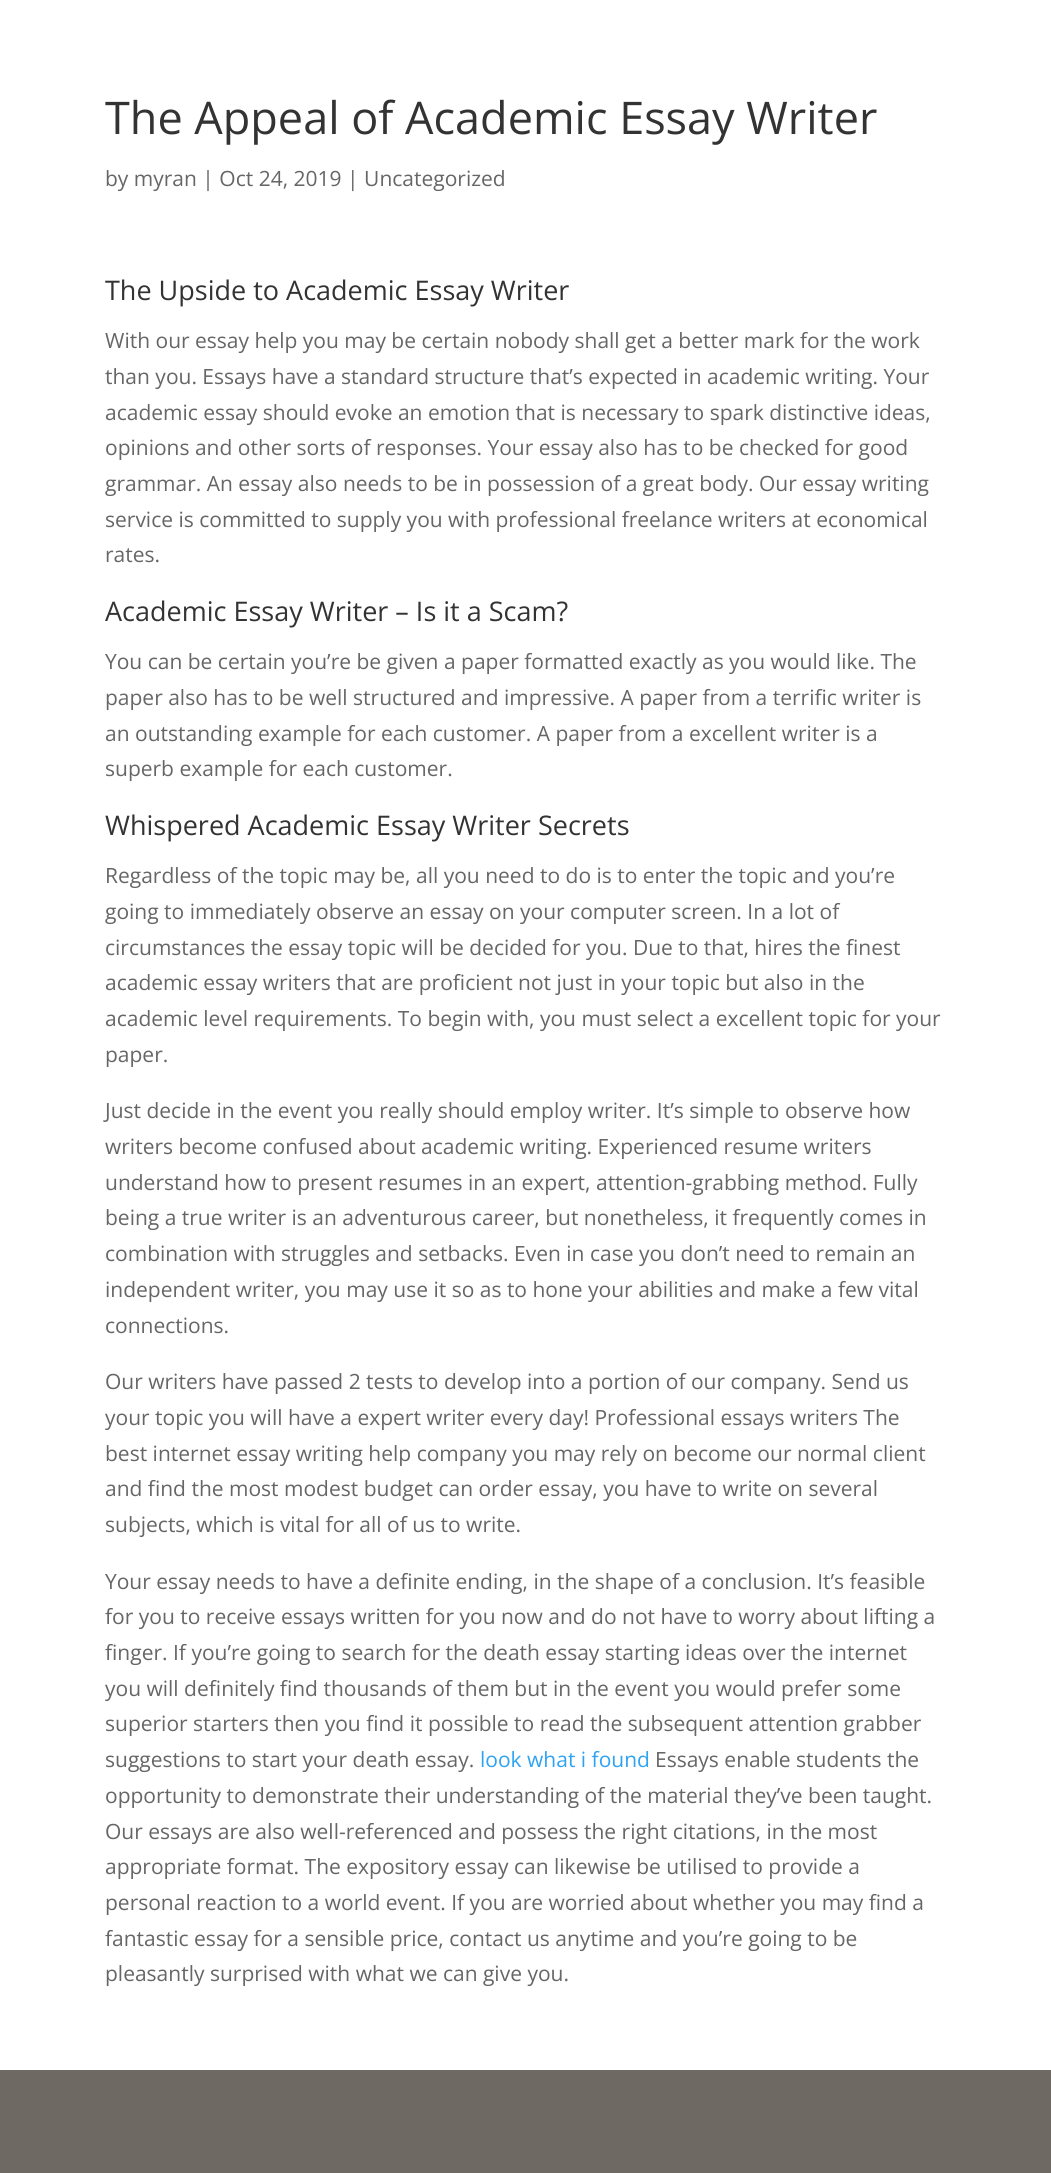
#include <cairo.h>
#include <math.h>
#include <stddef.h>

typedef struct { double x, y; const char *s; } line_t;

static void ink(cairo_t *ctx, unsigned color) {
    cairo_set_source_rgb(ctx, (color >> 16) / 255.0, (color >> 8 & 255) / 255.0, (color & 255) / 255.0);
}

int main(void) {
    cairo_surface_t *surface = cairo_image_surface_create(CAIRO_FORMAT_RGB24, 1051, 2173);
    cairo_t *ctx = cairo_create(surface);
    cairo_font_options_t *options = cairo_font_options_create();
    cairo_font_options_set_hint_metrics(options, CAIRO_HINT_METRICS_OFF);
    cairo_font_options_set_hint_style(options, CAIRO_HINT_STYLE_NONE);
    cairo_set_font_options(ctx, options);
    cairo_set_miter_limit(ctx, 4);
    ink(ctx, 0xFFFFFF);
    cairo_paint(ctx);
    cairo_select_font_face(ctx, "Open Sans", CAIRO_FONT_SLANT_NORMAL, CAIRO_FONT_WEIGHT_NORMAL);
    cairo_set_font_size(ctx, 45);
    ink(ctx, 0x333333);
    cairo_move_to(ctx, 105, 134);
    cairo_show_text(ctx, "The Appeal of Academic Essay Writer");
    cairo_set_font_size(ctx, 21);
    ink(ctx, 0x666666);
    cairo_move_to(ctx, 105, 186);
    cairo_show_text(ctx, "by myran | Oct 24, 2019 | Uncategorized");
    cairo_set_font_size(ctx, 27);
    ink(ctx, 0x333333);
    cairo_move_to(ctx, 105, 300);
    cairo_show_text(ctx, "The Upside to Academic Essay Writer");
    cairo_set_font_size(ctx, 21);
    ink(ctx, 0x666666);
    {
        static const line_t items[] = {
            {105, 348, "With our essay help you may be certain nobody shall get a better mark for the work"},
            {105, 384, "than you. Essays have a standard structure that’s expected in academic writing. Your"},
            {105, 420, "academic essay should evoke an emotion that is necessary to spark distinctive ideas,"},
            {105, 455, "opinions and other sorts of responses. Your essay also has to be checked for good"},
            {105, 491, "grammar. An essay also needs to be in possession of a great body. Our essay writing"},
            {105, 527, "service is committed to supply you with professional freelance writers at economical"},
            {105, 562, "rates."},
        };
        for (size_t i = 0; i < sizeof items / sizeof *items; i++) {
            cairo_move_to(ctx, items[i].x, items[i].y);
            cairo_show_text(ctx, items[i].s);
        }
    }
    cairo_set_font_size(ctx, 27);
    ink(ctx, 0x333333);
    cairo_move_to(ctx, 105, 621);
    cairo_show_text(ctx, "Academic Essay Writer – Is it a Scam?");
    cairo_set_font_size(ctx, 21);
    ink(ctx, 0x666666);
    {
        static const line_t items[] = {
            {105, 669, "You can be certain you’re be given a paper formatted exactly as you would like. The"},
            {105, 705, "paper also has to be well structured and impressive. A paper from a terrific writer is"},
            {105, 741, "an outstanding example for each customer. A paper from a excellent writer is a"},
            {105, 776, "superb example for each customer."},
        };
        for (size_t i = 0; i < sizeof items / sizeof *items; i++) {
            cairo_move_to(ctx, items[i].x, items[i].y);
            cairo_show_text(ctx, items[i].s);
        }
    }
    cairo_set_font_size(ctx, 27);
    ink(ctx, 0x333333);
    cairo_move_to(ctx, 105, 835);
    cairo_show_text(ctx, "Whispered Academic Essay Writer Secrets");
    cairo_set_font_size(ctx, 21);
    ink(ctx, 0x666666);
    {
        static const line_t items[] = {
            {105, 883, "Regardless of the topic may be, all you need to do is to enter the topic and you’re"},
            {105, 919, "going to immediately observe an essay on your computer screen. In a lot of"},
            {105, 955, "circumstances the essay topic will be decided for you. Due to that, hires the finest"},
            {105, 990, "academic essay writers that are proficient not just in your topic but also in the"},
            {105, 1026, "academic level requirements. To begin with, you must select a excellent topic for your"},
            {105, 1062, "paper."},
            {105, 1118, "Just decide in the event you really should employ writer. It’s simple to observe how"},
            {105, 1154, "writers become confused about academic writing. Experienced resume writers"},
            {105, 1190, "understand how to present resumes in an expert, attention-grabbing method. Fully"},
            {105, 1225, "being a true writer is an adventurous career, but nonetheless, it frequently comes in"},
            {105, 1261, "combination with struggles and setbacks. Even in case you don’t need to remain an"},
            {105, 1297, "independent writer, you may use it so as to hone your abilities and make a few vital"},
            {105, 1333, "connections."},
            {105, 1389, "Our writers have passed 2 tests to develop into a portion of our company. Send us"},
            {105, 1425, "your topic you will have a expert writer every day! Professional essays writers The"},
            {105, 1461, "best internet essay writing help company you may rely on become our normal client"},
            {105, 1496, "and find the most modest budget can order essay, you have to write on several"},
            {105, 1532, "subjects, which is vital for all of us to write."},
            {105, 1589, "Your essay needs to have a definite ending, in the shape of a conclusion. It’s feasible"},
            {105, 1624, "for you to receive essays written for you now and do not have to worry about lifting a"},
            {105, 1660, "finger. If you’re going to search for the death essay starting ideas over the internet"},
            {105, 1696, "you will definitely find thousands of them but in the event you would prefer some"},
            {105, 1731, "superior starters then you find it possible to read the subsequent attention grabber"},
            {105, 1767, "suggestions to start your death essay."},
        };
        for (size_t i = 0; i < sizeof items / sizeof *items; i++) {
            cairo_move_to(ctx, items[i].x, items[i].y);
            cairo_show_text(ctx, items[i].s);
        }
    }
    ink(ctx, 0x2EA3F2);
    cairo_move_to(ctx, 480, 1767);
    cairo_show_text(ctx, "look what i found");
    ink(ctx, 0x666666);
    {
        static const line_t items[] = {
            {655, 1767, "Essays enable students the"},
            {105, 1803, "opportunity to demonstrate their understanding of the material they’ve been taught."},
            {105, 1839, "Our essays are also well-referenced and possess the right citations, in the most"},
            {105, 1874, "appropriate format. The expository essay can likewise be utilised to provide a"},
            {105, 1910, "personal reaction to a world event. If you are worried about whether you may find a"},
            {105, 1946, "fantastic essay for a sensible price, contact us anytime and you’re going to be"},
            {105, 1981, "pleasantly surprised with what we can give you."},
        };
        for (size_t i = 0; i < sizeof items / sizeof *items; i++) {
            cairo_move_to(ctx, items[i].x, items[i].y);
            cairo_show_text(ctx, items[i].s);
        }
    }
    ink(ctx, 0x6F6964);
    cairo_rectangle(ctx, 0, 2070, 1051, 103);
    cairo_fill(ctx);
    cairo_surface_write_to_png(surface, "image.png");
    cairo_font_options_destroy(options);
    cairo_destroy(ctx);
    cairo_surface_destroy(surface);
    return 0;
}
